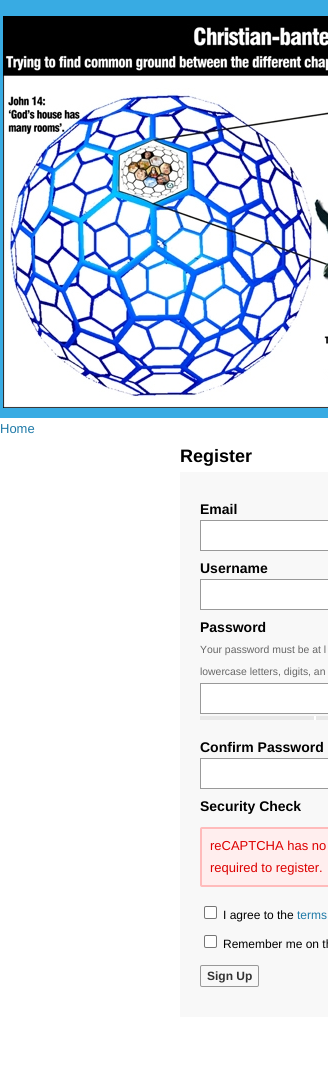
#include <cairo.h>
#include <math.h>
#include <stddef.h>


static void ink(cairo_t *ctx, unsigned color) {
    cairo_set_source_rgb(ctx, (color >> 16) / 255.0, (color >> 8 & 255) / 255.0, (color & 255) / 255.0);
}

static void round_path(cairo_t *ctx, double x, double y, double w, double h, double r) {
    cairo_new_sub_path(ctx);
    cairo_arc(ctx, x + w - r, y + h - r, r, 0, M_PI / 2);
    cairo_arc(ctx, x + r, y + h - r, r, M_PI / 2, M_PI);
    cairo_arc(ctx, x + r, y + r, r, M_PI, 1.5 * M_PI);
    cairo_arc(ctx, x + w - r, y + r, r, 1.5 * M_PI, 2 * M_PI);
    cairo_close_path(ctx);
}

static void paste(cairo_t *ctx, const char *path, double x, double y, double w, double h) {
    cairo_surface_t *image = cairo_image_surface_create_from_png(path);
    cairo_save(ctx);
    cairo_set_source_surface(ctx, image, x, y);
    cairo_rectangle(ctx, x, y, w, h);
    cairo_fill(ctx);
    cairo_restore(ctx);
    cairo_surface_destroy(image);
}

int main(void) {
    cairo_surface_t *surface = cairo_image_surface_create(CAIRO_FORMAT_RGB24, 328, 1083);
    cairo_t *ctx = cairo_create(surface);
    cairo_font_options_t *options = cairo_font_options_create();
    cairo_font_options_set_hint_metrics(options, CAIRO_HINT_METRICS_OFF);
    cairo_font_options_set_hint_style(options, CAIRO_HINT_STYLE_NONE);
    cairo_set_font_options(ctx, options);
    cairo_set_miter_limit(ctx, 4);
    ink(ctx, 0xFFFFFF);
    cairo_paint(ctx);
    ink(ctx, 0x38ABE3);
    cairo_rectangle(ctx, 0, 0, 328, 418);
    cairo_fill(ctx);
    paste(ctx, "media/1.png", 3, 16, 325, 392);
    cairo_select_font_face(ctx, "Liberation Sans", CAIRO_FONT_SLANT_NORMAL, CAIRO_FONT_WEIGHT_NORMAL);
    cairo_set_font_size(ctx, 13);
    ink(ctx, 0x1E79A7);
    cairo_move_to(ctx, 0, 433);
    cairo_show_text(ctx, "Home");
    cairo_select_font_face(ctx, "Liberation Sans", CAIRO_FONT_SLANT_NORMAL, CAIRO_FONT_WEIGHT_BOLD);
    cairo_set_font_size(ctx, 18);
    ink(ctx, 0x000000);
    cairo_move_to(ctx, 180, 462);
    cairo_show_text(ctx, "Register");
    ink(ctx, 0xF8F8F8);
    cairo_rectangle(ctx, 180, 472, 148, 545);
    cairo_fill(ctx);
    cairo_set_font_size(ctx, 14);
    ink(ctx, 0x000000);
    cairo_move_to(ctx, 200, 514);
    cairo_show_text(ctx, "Email");
    ink(ctx, 0xFFFFFF);
    cairo_rectangle(ctx, 200.5, 520.5, 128, 30);
    cairo_fill_preserve(ctx);
    ink(ctx, 0x999999);
    cairo_set_line_width(ctx, 1);
    cairo_stroke(ctx);
    ink(ctx, 0x000000);
    cairo_move_to(ctx, 200, 573);
    cairo_show_text(ctx, "Username");
    ink(ctx, 0xFFFFFF);
    cairo_rectangle(ctx, 200.5, 579.5, 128, 30);
    cairo_fill_preserve(ctx);
    ink(ctx, 0x999999);
    cairo_stroke(ctx);
    ink(ctx, 0x000000);
    cairo_move_to(ctx, 200, 632);
    cairo_show_text(ctx, "Password");
    cairo_select_font_face(ctx, "Liberation Sans", CAIRO_FONT_SLANT_NORMAL, CAIRO_FONT_WEIGHT_NORMAL);
    cairo_set_font_size(ctx, 10.4);
    ink(ctx, 0x666666);
    cairo_move_to(ctx, 200, 653);
    cairo_show_text(ctx, "Your password must be at l");
    cairo_move_to(ctx, 200, 675);
    cairo_show_text(ctx, "lowercase letters, digits, an");
    ink(ctx, 0xFFFFFF);
    cairo_rectangle(ctx, 200.5, 683.5, 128, 30);
    cairo_fill_preserve(ctx);
    ink(ctx, 0x999999);
    cairo_stroke(ctx);
    ink(ctx, 0xE8E8E8);
    cairo_rectangle(ctx, 200, 716, 128, 4);
    cairo_fill(ctx);
    ink(ctx, 0xFFFFFF);
    cairo_rectangle(ctx, 314, 716, 2, 4);
    cairo_fill(ctx);
    cairo_select_font_face(ctx, "Liberation Sans", CAIRO_FONT_SLANT_NORMAL, CAIRO_FONT_WEIGHT_BOLD);
    cairo_set_font_size(ctx, 14);
    ink(ctx, 0x000000);
    cairo_move_to(ctx, 200, 752);
    cairo_show_text(ctx, "Confirm Password");
    ink(ctx, 0xFFFFFF);
    cairo_rectangle(ctx, 200.5, 758.5, 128, 30);
    cairo_fill_preserve(ctx);
    ink(ctx, 0x999999);
    cairo_stroke(ctx);
    ink(ctx, 0x000000);
    cairo_move_to(ctx, 200, 811);
    cairo_show_text(ctx, "Security Check");
    ink(ctx, 0xFFEEEE);
    round_path(ctx, 201, 828, 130, 58, 1);
    cairo_fill_preserve(ctx);
    ink(ctx, 0xFFBBBB);
    cairo_set_line_width(ctx, 2);
    cairo_stroke(ctx);
    cairo_select_font_face(ctx, "Liberation Sans", CAIRO_FONT_SLANT_NORMAL, CAIRO_FONT_WEIGHT_NORMAL);
    cairo_set_font_size(ctx, 13);
    ink(ctx, 0xDD0000);
    cairo_move_to(ctx, 210, 850);
    cairo_show_text(ctx, "reCAPTCHA has no");
    cairo_move_to(ctx, 210, 872);
    cairo_show_text(ctx, "required to register.");
    ink(ctx, 0xFFFFFF);
    round_path(ctx, 204.5, 906.5, 12, 12, 1.5);
    cairo_fill_preserve(ctx);
    ink(ctx, 0x767676);
    cairo_set_line_width(ctx, 1);
    cairo_stroke(ctx);
    cairo_set_font_size(ctx, 12);
    ink(ctx, 0x000000);
    cairo_move_to(ctx, 223, 919);
    cairo_show_text(ctx, "I agree to the");
    ink(ctx, 0x1E79A7);
    cairo_move_to(ctx, 297, 919);
    cairo_show_text(ctx, "terms");
    ink(ctx, 0xFFFFFF);
    round_path(ctx, 204.5, 935.5, 12, 12, 1.5);
    cairo_fill_preserve(ctx);
    ink(ctx, 0x767676);
    cairo_stroke(ctx);
    ink(ctx, 0x000000);
    cairo_move_to(ctx, 223, 948);
    cairo_show_text(ctx, "Remember me on th");
    round_path(ctx, 200.5, 965.5, 58, 21, 1.5);
    ink(ctx, 0x999999);
    cairo_stroke(ctx);
    cairo_select_font_face(ctx, "Liberation Sans", CAIRO_FONT_SLANT_NORMAL, CAIRO_FONT_WEIGHT_BOLD);
    ink(ctx, 0x333333);
    cairo_move_to(ctx, 207, 980);
    cairo_show_text(ctx, "Sign Up");
    cairo_surface_write_to_png(surface, "image.png");
    cairo_font_options_destroy(options);
    cairo_destroy(ctx);
    cairo_surface_destroy(surface);
    return 0;
}
